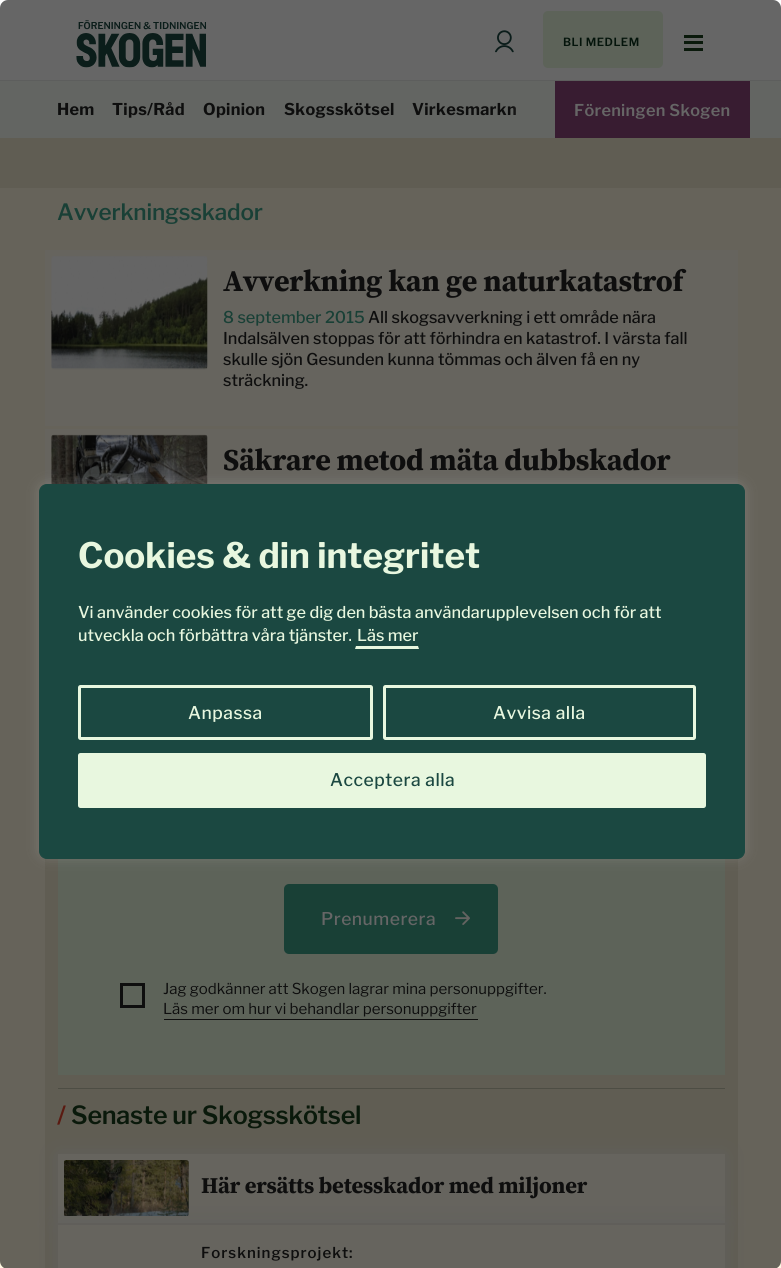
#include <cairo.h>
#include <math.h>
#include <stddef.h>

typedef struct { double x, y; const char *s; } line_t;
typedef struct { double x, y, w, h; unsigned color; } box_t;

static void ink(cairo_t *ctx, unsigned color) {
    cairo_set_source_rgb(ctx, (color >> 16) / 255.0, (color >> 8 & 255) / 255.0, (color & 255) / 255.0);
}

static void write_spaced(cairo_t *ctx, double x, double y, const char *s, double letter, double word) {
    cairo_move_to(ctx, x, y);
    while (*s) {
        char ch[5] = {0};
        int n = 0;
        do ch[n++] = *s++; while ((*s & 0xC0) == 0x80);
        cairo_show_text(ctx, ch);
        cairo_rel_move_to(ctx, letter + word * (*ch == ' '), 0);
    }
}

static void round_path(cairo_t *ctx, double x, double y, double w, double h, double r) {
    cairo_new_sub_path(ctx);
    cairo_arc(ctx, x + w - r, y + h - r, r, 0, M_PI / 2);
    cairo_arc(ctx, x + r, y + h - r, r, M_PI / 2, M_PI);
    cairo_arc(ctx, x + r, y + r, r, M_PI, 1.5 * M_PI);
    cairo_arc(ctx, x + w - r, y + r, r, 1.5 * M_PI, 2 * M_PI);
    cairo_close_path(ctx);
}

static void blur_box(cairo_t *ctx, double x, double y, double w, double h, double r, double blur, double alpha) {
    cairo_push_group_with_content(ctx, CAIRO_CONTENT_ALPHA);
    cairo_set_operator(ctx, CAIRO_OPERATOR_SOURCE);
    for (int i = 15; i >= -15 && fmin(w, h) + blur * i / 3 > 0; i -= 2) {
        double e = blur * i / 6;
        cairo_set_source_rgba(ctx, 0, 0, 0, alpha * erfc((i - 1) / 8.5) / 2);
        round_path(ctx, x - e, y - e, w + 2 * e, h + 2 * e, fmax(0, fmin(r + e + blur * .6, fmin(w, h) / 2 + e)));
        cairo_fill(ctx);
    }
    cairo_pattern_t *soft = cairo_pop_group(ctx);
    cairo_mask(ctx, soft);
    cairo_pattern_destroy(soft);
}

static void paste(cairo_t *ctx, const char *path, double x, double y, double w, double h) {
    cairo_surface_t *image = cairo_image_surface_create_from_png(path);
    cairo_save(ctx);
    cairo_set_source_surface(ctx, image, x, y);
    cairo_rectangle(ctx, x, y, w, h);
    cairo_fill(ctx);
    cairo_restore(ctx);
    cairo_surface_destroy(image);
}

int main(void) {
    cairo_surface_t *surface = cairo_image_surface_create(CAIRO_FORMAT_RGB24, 781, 1268);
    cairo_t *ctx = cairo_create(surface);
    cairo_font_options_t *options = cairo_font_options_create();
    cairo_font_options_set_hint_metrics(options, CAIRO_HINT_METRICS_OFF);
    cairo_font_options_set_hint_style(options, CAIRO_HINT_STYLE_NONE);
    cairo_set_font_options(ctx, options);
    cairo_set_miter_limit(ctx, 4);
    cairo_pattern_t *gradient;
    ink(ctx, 0xFFFFFF);
    cairo_paint(ctx);
    ink(ctx, 0xE8EBE8);
    cairo_rectangle(ctx, 0, 80, 781, 1);
    cairo_fill(ctx);
    paste(ctx, "media/1.png", 76, 20, 130, 48);
    paste(ctx, "media/2.png", 495, 30, 19, 23);
    ink(ctx, 0xE8F7DF);
    round_path(ctx, 543, 11, 120, 57, 5);
    cairo_fill(ctx);
    cairo_select_font_face(ctx, "Libre Franklin SemiBold", CAIRO_FONT_SLANT_NORMAL, CAIRO_FONT_WEIGHT_NORMAL);
    cairo_set_font_size(ctx, 11.25);
    ink(ctx, 0x0B331C);
    write_spaced(ctx, 563, 46, "BLI MEDLEM", 0.5, 0);
    {
        static const box_t items[] = {
            {684, 35, 19, 3, 0x193E1B},
            {684, 41, 19, 3, 0x193E1B},
            {684, 48, 19, 3, 0x193E1B},
            {0, 81, 781, 57, 0xF8FDF5},
        };
        for (size_t i = 0; i < sizeof items / sizeof *items; i++) {
            ink(ctx, items[i].color);
            cairo_rectangle(ctx, items[i].x, items[i].y, items[i].w, items[i].h);
            cairo_fill(ctx);
        }
    }
    cairo_select_font_face(ctx, "Libre Franklin", CAIRO_FONT_SLANT_NORMAL, CAIRO_FONT_WEIGHT_BOLD);
    cairo_set_font_size(ctx, 16.25);
    ink(ctx, 0x222222);
    {
        static const line_t items[] = {
            {57, 115, "Hem"},
            {112, 115, "Tips/Råd"},
            {203, 115, "Opinion"},
            {284, 115, "Skogsskötsel"},
            {412, 115, "Virkesmarkn"},
        };
        for (size_t i = 0; i < sizeof items / sizeof *items; i++) {
            write_spaced(ctx, items[i].x, items[i].y, items[i].s, 0.3, 0);
        }
    }
    gradient = cairo_pattern_create_linear(511, 109, 555, 109);
    cairo_pattern_add_color_stop_rgba(gradient, 0, 0.973, 0.992, 0.961, 0);
    cairo_pattern_add_color_stop_rgba(gradient, 0.8, 0.973, 0.992, 0.961, 1);
    cairo_set_source(ctx, gradient);
    cairo_pattern_destroy(gradient);
    cairo_rectangle(ctx, 512, 106, 5, 9);
    cairo_fill(ctx);
    ink(ctx, 0x8D467B);
    cairo_rectangle(ctx, 555, 81, 195, 57);
    cairo_fill(ctx);
    cairo_select_font_face(ctx, "Libre Franklin SemiBold", CAIRO_FONT_SLANT_NORMAL, CAIRO_FONT_WEIGHT_NORMAL);
    ink(ctx, 0xFFFFFF);
    write_spaced(ctx, 574, 116, "Föreningen Skogen", 0.3, 0);
    {
        static const box_t items[] = {
            {0, 138, 781, 50, 0xF0E8CF},
            {0, 188, 781, 1080, 0xFEF7E1},
            {45, 858, 693, 410, 0xF0E8CF},
        };
        for (size_t i = 0; i < sizeof items / sizeof *items; i++) {
            ink(ctx, items[i].color);
            cairo_rectangle(ctx, items[i].x, items[i].y, items[i].w, items[i].h);
            cairo_fill(ctx);
        }
    }
    cairo_select_font_face(ctx, "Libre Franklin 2 SemiBold", CAIRO_FONT_SLANT_NORMAL, CAIRO_FONT_WEIGHT_NORMAL);
    cairo_set_font_size(ctx, 22.5);
    ink(ctx, 0x3FA088);
    write_spaced(ctx, 57, 220, "Avverkningsskador", -0.2, 0);
    ink(ctx, 0xFEF9EA);
    cairo_rectangle(ctx, 45, 250, 693, 176);
    cairo_fill(ctx);
    paste(ctx, "media/3.png", 51, 256, 157, 114);
    cairo_select_font_face(ctx, "Source Serif 4", CAIRO_FONT_SLANT_NORMAL, CAIRO_FONT_WEIGHT_BOLD);
    cairo_set_font_size(ctx, 30);
    ink(ctx, 0x222222);
    write_spaced(ctx, 223, 291, "Avverkning kan ge naturkatastrof", -0.3, 0);
    cairo_select_font_face(ctx, "Libre Franklin Medium", CAIRO_FONT_SLANT_NORMAL, CAIRO_FONT_WEIGHT_NORMAL);
    cairo_set_font_size(ctx, 16.25);
    ink(ctx, 0x3FA088);
    cairo_move_to(ctx, 223, 323);
    cairo_show_text(ctx, "8 september 2015");
    ink(ctx, 0x222222);
    {
        static const line_t items[] = {
            {368, 323, "All skogsavverkning i ett område nära"},
            {223, 344, "Indalsälven stoppas för att förhindra en katastrof. I värsta fall"},
            {223, 365, "skulle sjön Gesunden kunna tömmas och älven få en ny"},
            {223, 386, "sträckning."},
        };
        for (size_t i = 0; i < sizeof items / sizeof *items; i++) {
            cairo_move_to(ctx, items[i].x, items[i].y);
            cairo_show_text(ctx, items[i].s);
        }
    }
    ink(ctx, 0xFEF9EA);
    cairo_rectangle(ctx, 45, 429, 693, 56);
    cairo_fill(ctx);
    paste(ctx, "media/4.png", 51, 434, 157, 50);
    cairo_select_font_face(ctx, "Source Serif 4", CAIRO_FONT_SLANT_NORMAL, CAIRO_FONT_WEIGHT_BOLD);
    cairo_set_font_size(ctx, 30);
    ink(ctx, 0x222222);
    write_spaced(ctx, 223, 470, "Säkrare metod mäta dubbskador", -0.3, 0);
    ink(ctx, 0xC0C1AA);
    cairo_rectangle(ctx, 58, 1088, 667, 1);
    cairo_fill(ctx);
    ink(ctx, 0xE8F7DF);
    cairo_rectangle(ctx, 58, 859, 667, 216);
    cairo_fill(ctx);
    ink(ctx, 0x3FA088);
    round_path(ctx, 284, 884, 214, 70, 5);
    cairo_fill(ctx);
    paste(ctx, "media/5.png", 455, 911, 15, 14);
    cairo_select_font_face(ctx, "Libre Franklin Medium", CAIRO_FONT_SLANT_NORMAL, CAIRO_FONT_WEIGHT_NORMAL);
    cairo_set_font_size(ctx, 17.5);
    ink(ctx, 0xFFFFFF);
    write_spaced(ctx, 321, 925, "Prenumerera", 0.5, 0);
    cairo_rectangle(ctx, 121.5, 984.5, 22, 22);
    ink(ctx, 0x222222);
    cairo_set_line_width(ctx, 3);
    cairo_stroke(ctx);
    cairo_select_font_face(ctx, "Libre Franklin", CAIRO_FONT_SLANT_NORMAL, CAIRO_FONT_WEIGHT_NORMAL);
    cairo_set_font_size(ctx, 15);
    cairo_move_to(ctx, 163, 994);
    cairo_show_text(ctx, "Jag godkänner att Skogen lagrar mina personuppgifter.");
    cairo_move_to(ctx, 163, 1014);
    cairo_show_text(ctx, "Läs mer om hur vi behandlar personuppgifter");
    cairo_rectangle(ctx, 164, 1019, 314, 1);
    cairo_fill(ctx);
    cairo_select_font_face(ctx, "Libre Franklin SemiBold", CAIRO_FONT_SLANT_NORMAL, CAIRO_FONT_WEIGHT_NORMAL);
    cairo_set_font_size(ctx, 25);
    ink(ctx, 0xE2422A);
    write_spaced(ctx, 57, 1124, "/", -0.25, 0);
    ink(ctx, 0x193E1B);
    write_spaced(ctx, 71, 1124, "Senaste ur Skogsskötsel", -0.25, 0);
    ink(ctx, 0xEFEEE8);
    blur_box(ctx, 58, 1154, 667, 69, 0, 10.5, 1);
    ink(ctx, 0xFEF9EA);
    cairo_rectangle(ctx, 58, 1154, 667, 69);
    cairo_fill(ctx);
    paste(ctx, "media/6.png", 64, 1160, 125, 56);
    ink(ctx, 0xEFEEE8);
    blur_box(ctx, 58, 1225, 667, 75, 0, 10.5, 1);
    cairo_select_font_face(ctx, "Source Serif 4", CAIRO_FONT_SLANT_NORMAL, CAIRO_FONT_WEIGHT_BOLD);
    cairo_set_font_size(ctx, 22.5);
    ink(ctx, 0x222222);
    write_spaced(ctx, 201, 1193, "Här ersätts betesskador med miljoner", -0.2, 0);
    ink(ctx, 0xFEF9EA);
    cairo_rectangle(ctx, 58, 1225, 667, 43);
    cairo_fill(ctx);
    cairo_select_font_face(ctx, "Libre Franklin 2 SemiBold", CAIRO_FONT_SLANT_NORMAL, CAIRO_FONT_WEIGHT_NORMAL);
    cairo_set_font_size(ctx, 15);
    ink(ctx, 0x222222);
    write_spaced(ctx, 201, 1258, "Forskningsprojekt:", 1, 0);
    cairo_set_source_rgba(ctx, 0, 0, 0, 0.6);
    round_path(ctx, 0, 0, 781, 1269, 8);
    cairo_fill(ctx);
    ink(ctx, 0xACABAB);
    blur_box(ctx, 39, 483, 706, 375, 8, 6, 0.3);
    ink(ctx, 0x1B4841);
    round_path(ctx, 39.5, 484.5, 705, 374, 7.5);
    cairo_fill_preserve(ctx);
    cairo_set_line_width(ctx, 1);
    cairo_stroke(ctx);
    cairo_select_font_face(ctx, "Libre Franklin", CAIRO_FONT_SLANT_NORMAL, CAIRO_FONT_WEIGHT_BOLD);
    cairo_set_font_size(ctx, 35);
    ink(ctx, 0xE8F7DF);
    cairo_move_to(ctx, 78, 568);
    cairo_show_text(ctx, "Cookies & din integritet");
    cairo_select_font_face(ctx, "Libre Franklin Medium", CAIRO_FONT_SLANT_NORMAL, CAIRO_FONT_WEIGHT_NORMAL);
    cairo_set_font_size(ctx, 16.25);
    {
        static const line_t items[] = {
            {78, 618, "Vi använder cookies för att ge dig den bästa användarupplevelsen och för att"},
            {78, 641, "utveckla och förbättra våra tjänster."},
            {357, 641, "Läs mer"},
        };
        for (size_t i = 0; i < sizeof items / sizeof *items; i++) {
            cairo_move_to(ctx, items[i].x, items[i].y);
            cairo_show_text(ctx, items[i].s);
        }
    }
    cairo_new_path(ctx);
    cairo_move_to(ctx, 419, 649);
    cairo_line_to(ctx, 355, 649);
    cairo_line_to(ctx, 356, 646);
    cairo_line_to(ctx, 418, 646);
    cairo_close_path(ctx);
    cairo_fill(ctx);
    round_path(ctx, 79.5, 686.5, 292, 52, 1);
    cairo_set_line_width(ctx, 3);
    cairo_stroke(ctx);
    cairo_set_font_size(ctx, 17.5);
    write_spaced(ctx, 188, 719, "Anpassa", 0.5, 0);
    round_path(ctx, 384.5, 686.5, 310, 52, 1);
    cairo_stroke(ctx);
    write_spaced(ctx, 493, 719, "Avvisa alla", 0.5, 0);
    round_path(ctx, 79.5, 754.5, 625, 52, 1);
    cairo_fill_preserve(ctx);
    cairo_stroke(ctx);
    ink(ctx, 0x1B4841);
    write_spaced(ctx, 330, 786, "Acceptera alla", 0.5, 0);
    cairo_surface_write_to_png(surface, "image.png");
    cairo_font_options_destroy(options);
    cairo_destroy(ctx);
    cairo_surface_destroy(surface);
    return 0;
}
